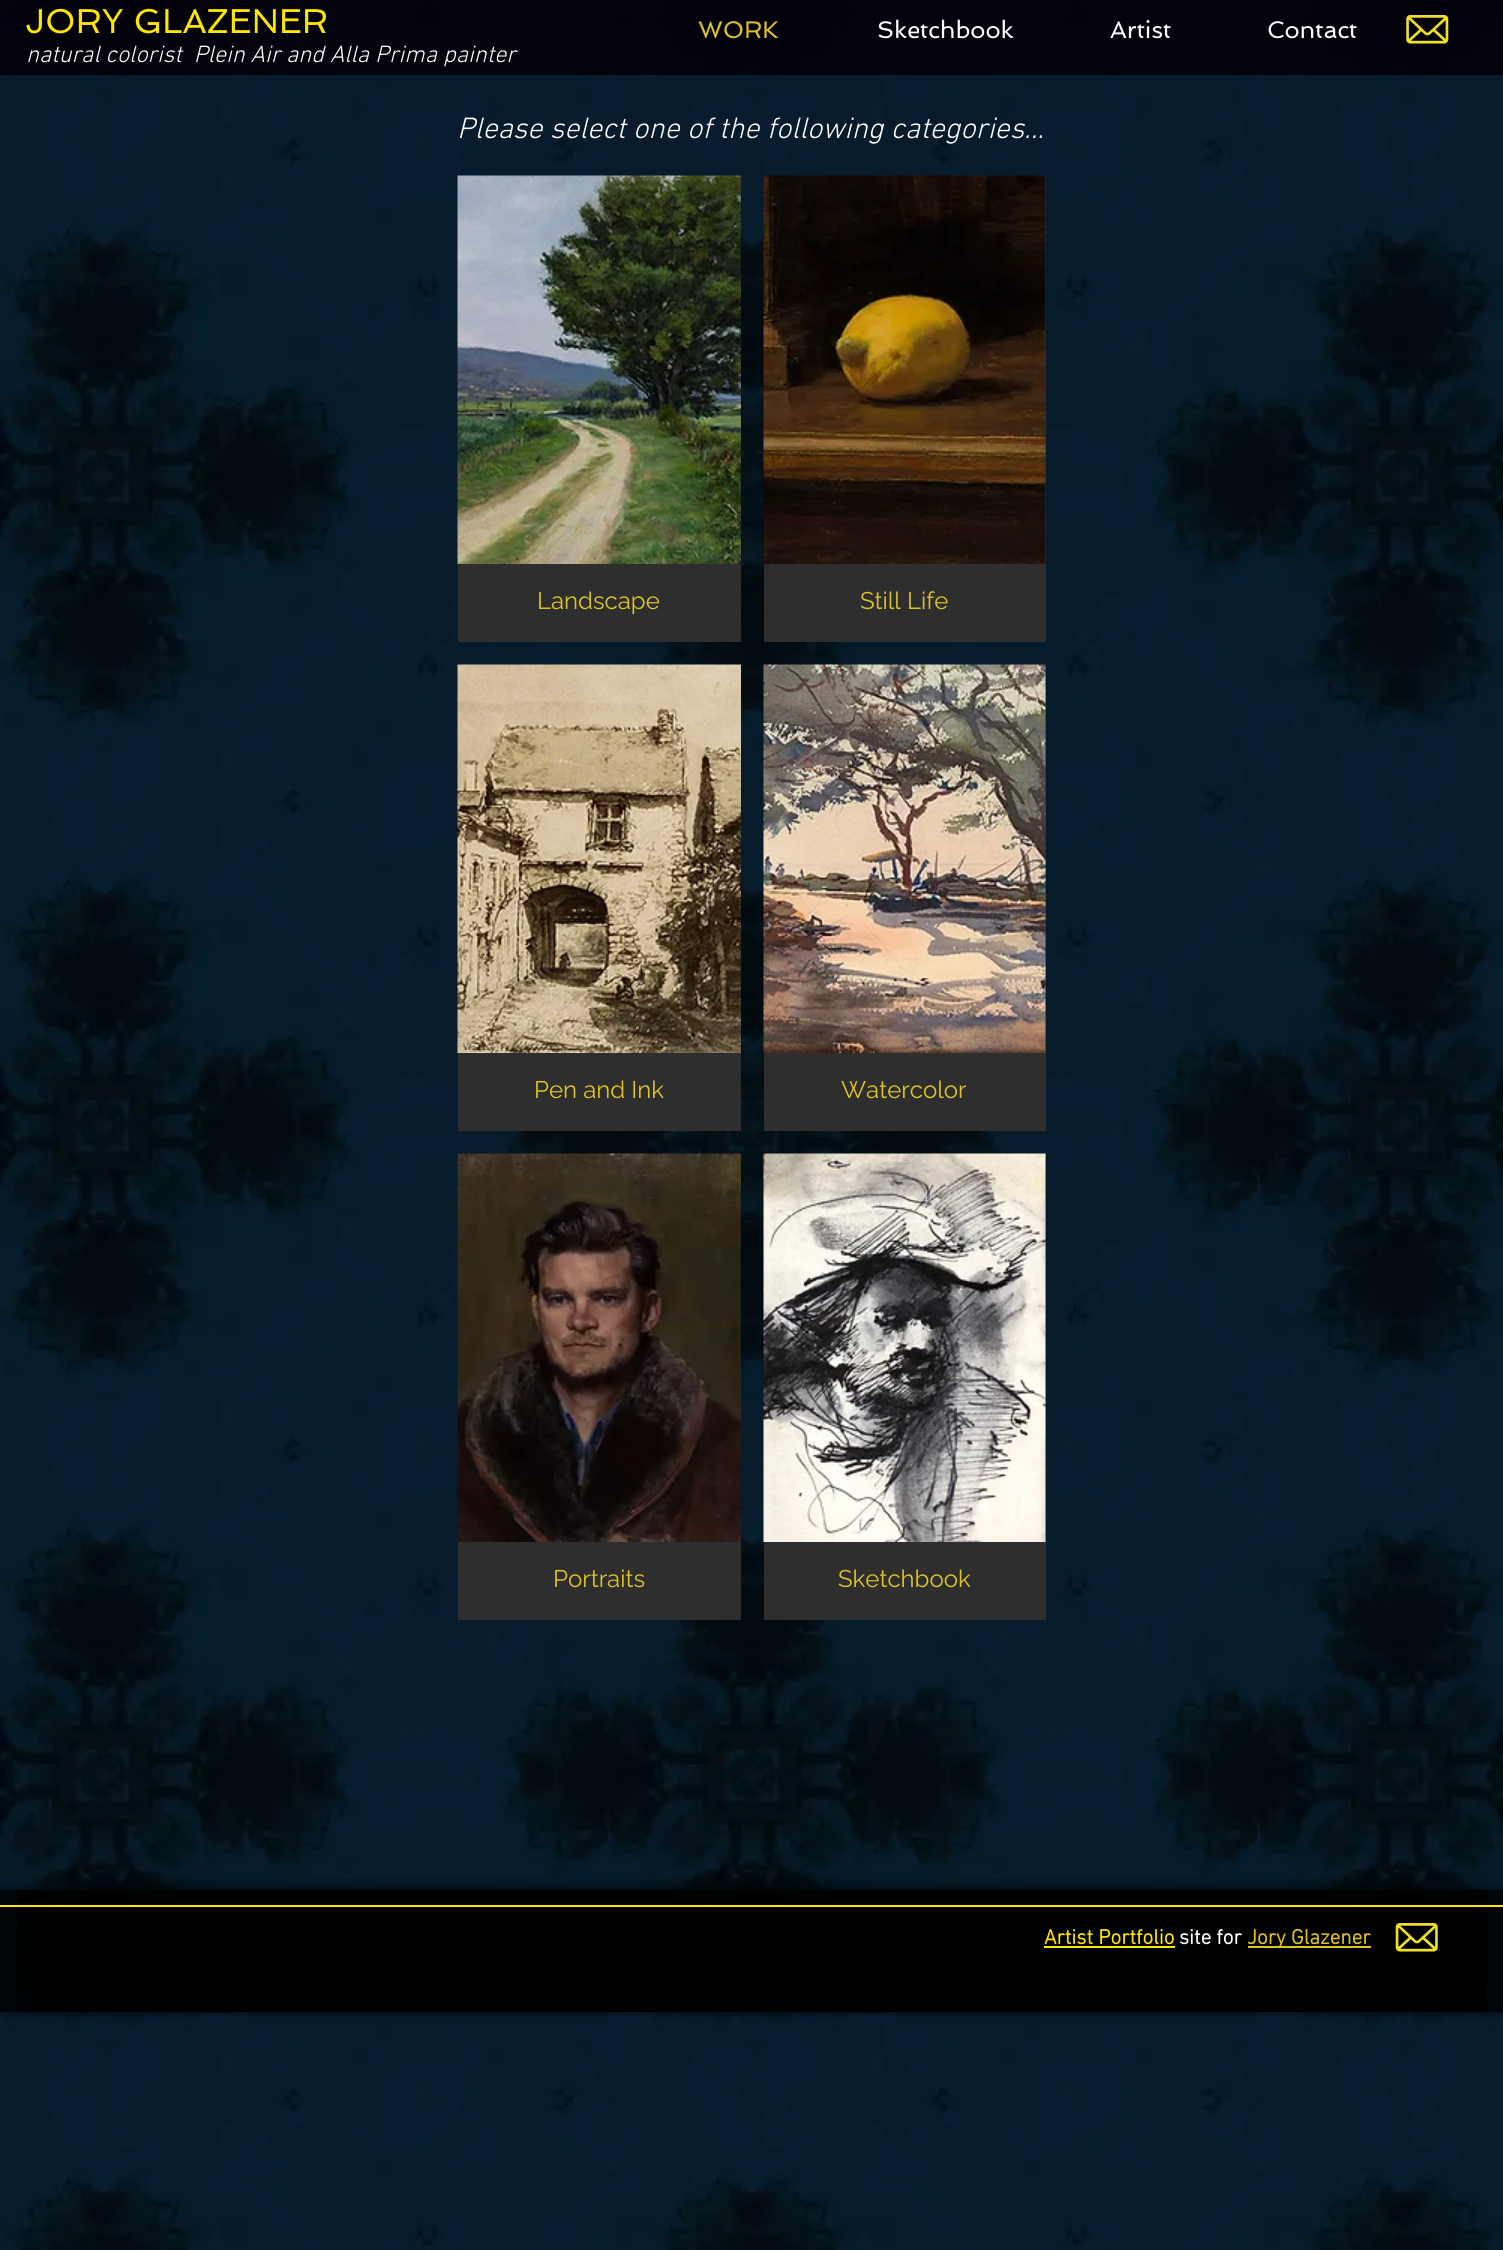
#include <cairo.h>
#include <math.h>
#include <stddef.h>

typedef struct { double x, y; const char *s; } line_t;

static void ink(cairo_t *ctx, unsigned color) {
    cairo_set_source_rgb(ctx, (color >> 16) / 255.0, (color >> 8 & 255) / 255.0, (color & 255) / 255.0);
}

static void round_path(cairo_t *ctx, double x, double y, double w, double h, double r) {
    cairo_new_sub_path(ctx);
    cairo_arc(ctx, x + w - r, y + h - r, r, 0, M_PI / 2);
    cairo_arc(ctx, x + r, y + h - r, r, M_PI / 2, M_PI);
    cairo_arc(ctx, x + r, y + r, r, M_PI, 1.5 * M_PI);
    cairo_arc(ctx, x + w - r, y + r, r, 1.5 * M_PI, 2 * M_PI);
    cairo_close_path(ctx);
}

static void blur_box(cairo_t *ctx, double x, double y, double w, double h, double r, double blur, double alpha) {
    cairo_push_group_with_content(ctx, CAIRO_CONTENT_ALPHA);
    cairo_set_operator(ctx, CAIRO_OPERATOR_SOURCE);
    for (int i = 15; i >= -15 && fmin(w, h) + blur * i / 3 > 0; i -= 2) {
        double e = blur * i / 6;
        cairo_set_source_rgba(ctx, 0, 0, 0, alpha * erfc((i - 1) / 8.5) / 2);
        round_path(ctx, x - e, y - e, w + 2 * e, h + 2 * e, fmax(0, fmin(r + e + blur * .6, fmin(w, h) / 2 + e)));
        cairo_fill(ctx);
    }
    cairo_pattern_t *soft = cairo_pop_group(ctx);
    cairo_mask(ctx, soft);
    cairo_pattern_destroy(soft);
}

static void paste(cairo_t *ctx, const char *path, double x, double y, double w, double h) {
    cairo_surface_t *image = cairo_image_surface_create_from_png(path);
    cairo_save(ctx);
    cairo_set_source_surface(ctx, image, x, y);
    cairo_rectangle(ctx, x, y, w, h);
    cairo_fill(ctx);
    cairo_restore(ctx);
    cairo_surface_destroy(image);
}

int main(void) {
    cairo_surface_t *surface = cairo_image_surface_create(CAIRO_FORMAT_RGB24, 1503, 2250);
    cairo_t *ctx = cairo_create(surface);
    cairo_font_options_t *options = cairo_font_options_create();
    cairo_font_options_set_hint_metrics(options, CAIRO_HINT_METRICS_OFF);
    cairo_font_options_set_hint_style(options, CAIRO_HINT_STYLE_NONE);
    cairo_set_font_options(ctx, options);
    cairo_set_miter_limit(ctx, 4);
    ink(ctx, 0xFFFFFF);
    cairo_paint(ctx);
    paste(ctx, "media/1.png", 0, 0, 1503, 2250);
    cairo_set_source_rgba(ctx, 0.012, 0.004, 0.039, 0.9);
    cairo_rectangle(ctx, 0, 0, 1503, 75);
    cairo_fill(ctx);
    cairo_select_font_face(ctx, "Spinnaker", CAIRO_FONT_SLANT_NORMAL, CAIRO_FONT_WEIGHT_NORMAL);
    cairo_set_font_size(ctx, 34.5);
    ink(ctx, 0xFFE600);
    cairo_move_to(ctx, 25, 33);
    cairo_show_text(ctx, "JORY GLAZENER");
    cairo_set_font_size(ctx, 24);
    ink(ctx, 0xDEC328);
    cairo_move_to(ctx, 698, 38);
    cairo_show_text(ctx, "WORK");
    ink(ctx, 0xFFFFFF);
    {
        static const line_t items[] = {
            {877, 38, "Sketchbook"},
            {1110, 38, "Artist"},
            {1267, 38, "Contact"},
        };
        for (size_t i = 0; i < sizeof items / sizeof *items; i++) {
            cairo_move_to(ctx, items[i].x, items[i].y);
            cairo_show_text(ctx, items[i].s);
        }
    }
    paste(ctx, "media/2.png", 1406, 15, 43, 29);
    cairo_select_font_face(ctx, "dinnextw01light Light", CAIRO_FONT_SLANT_ITALIC, CAIRO_FONT_WEIGHT_NORMAL);
    cairo_move_to(ctx, 26, 62);
    cairo_show_text(ctx, "natural colorist  Plein Air and Alla Prima painter");
    cairo_set_font_size(ctx, 30);
    cairo_move_to(ctx, 457, 138);
    cairo_show_text(ctx, "Please select one of the following categories...");
    paste(ctx, "media/3.png", 457, 175, 284, 389);
    ink(ctx, 0x2F2E2E);
    cairo_rectangle(ctx, 458, 564, 283, 78);
    cairo_fill(ctx);
    cairo_select_font_face(ctx, "Raleway", CAIRO_FONT_SLANT_NORMAL, CAIRO_FONT_WEIGHT_NORMAL);
    cairo_set_font_size(ctx, 24);
    ink(ctx, 0xDEC328);
    cairo_move_to(ctx, 537, 609);
    cairo_show_text(ctx, "Landscape");
    ink(ctx, 0x2F2E2E);
    cairo_rectangle(ctx, 1045, 176, 1, 388);
    cairo_fill(ctx);
    paste(ctx, "media/4.png", 763, 175, 283, 389);
    cairo_rectangle(ctx, 764, 564, 282, 78);
    cairo_fill(ctx);
    ink(ctx, 0xDEC328);
    cairo_move_to(ctx, 860, 609);
    cairo_show_text(ctx, "Still Life");
    paste(ctx, "media/5.png", 457, 664, 284, 389);
    ink(ctx, 0x2F2E2E);
    cairo_rectangle(ctx, 458, 1053, 283, 78);
    cairo_fill(ctx);
    ink(ctx, 0xDEC328);
    cairo_move_to(ctx, 534, 1098);
    cairo_show_text(ctx, "Pen and Ink");
    ink(ctx, 0x2F2E2E);
    cairo_rectangle(ctx, 1045, 665, 1, 388);
    cairo_fill(ctx);
    paste(ctx, "media/6.png", 763, 664, 283, 389);
    cairo_rectangle(ctx, 764, 1053, 282, 78);
    cairo_fill(ctx);
    ink(ctx, 0xDEC328);
    cairo_move_to(ctx, 841, 1098);
    cairo_show_text(ctx, "Watercolor");
    paste(ctx, "media/7.png", 457, 1153, 284, 389);
    ink(ctx, 0x2F2E2E);
    cairo_rectangle(ctx, 458, 1542, 283, 78);
    cairo_fill(ctx);
    ink(ctx, 0xDEC328);
    cairo_move_to(ctx, 553, 1587);
    cairo_show_text(ctx, "Portraits");
    ink(ctx, 0x2F2E2E);
    cairo_rectangle(ctx, 1045, 1154, 1, 388);
    cairo_fill(ctx);
    paste(ctx, "media/8.png", 763, 1153, 283, 389);
    cairo_rectangle(ctx, 764, 1542, 282, 78);
    cairo_fill(ctx);
    ink(ctx, 0xDEC328);
    cairo_move_to(ctx, 838, 1587);
    cairo_show_text(ctx, "Sketchbook");
    cairo_save(ctx);
    cairo_set_fill_rule(ctx, CAIRO_FILL_RULE_EVEN_ODD);
    cairo_new_path(ctx);
    cairo_move_to(ctx, 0, 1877);
    cairo_line_to(ctx, 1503, 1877);
    cairo_line_to(ctx, 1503, 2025);
    cairo_line_to(ctx, 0, 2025);
    cairo_close_path(ctx);
    cairo_move_to(ctx, 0, 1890);
    cairo_line_to(ctx, 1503, 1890);
    cairo_line_to(ctx, 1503, 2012);
    cairo_line_to(ctx, 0, 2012);
    cairo_close_path(ctx);
    cairo_clip(ctx);
    ink(ctx, 0x000000);
    blur_box(ctx, 0, 1890, 1503, 122, 0, 4, 0.7);
    cairo_restore(ctx);
    cairo_set_source_rgba(ctx, 0, 0, 0, 0.8);
    cairo_rectangle(ctx, 0, 1890, 1503, 122);
    cairo_fill(ctx);
    cairo_rectangle(ctx, 17, 1890, 1470, 122);
    cairo_fill(ctx);
    paste(ctx, "media/9.png", 70, 1881, 96, 9);
    paste(ctx, "media/10.png", 167, 1878, 1169, 12);
    paste(ctx, "media/11.png", 1337, 1882, 87, 8);
    ink(ctx, 0xFFE600);
    cairo_rectangle(ctx, 0, 1905, 1503, 2);
    cairo_fill(ctx);
    cairo_select_font_face(ctx, "dinnextw01light", CAIRO_FONT_SLANT_NORMAL, CAIRO_FONT_WEIGHT_BOLD);
    cairo_set_font_size(ctx, 21);
    cairo_move_to(ctx, 1044, 1944);
    cairo_show_text(ctx, "Artist Portfolio");
    cairo_rectangle(ctx, 1044, 1946, 131, 2);
    cairo_fill(ctx);
    ink(ctx, 0xFFFFFF);
    cairo_move_to(ctx, 1179, 1944);
    cairo_show_text(ctx, "site for");
    ink(ctx, 0xDEC328);
    cairo_rectangle(ctx, 1248, 1946, 123, 2);
    cairo_fill(ctx);
    cairo_move_to(ctx, 1247, 1944);
    cairo_show_text(ctx, "Jory Glazener");
    paste(ctx, "media/12.png", 1395, 1923, 43, 29);
    cairo_surface_write_to_png(surface, "image.png");
    cairo_font_options_destroy(options);
    cairo_destroy(ctx);
    cairo_surface_destroy(surface);
    return 0;
}
